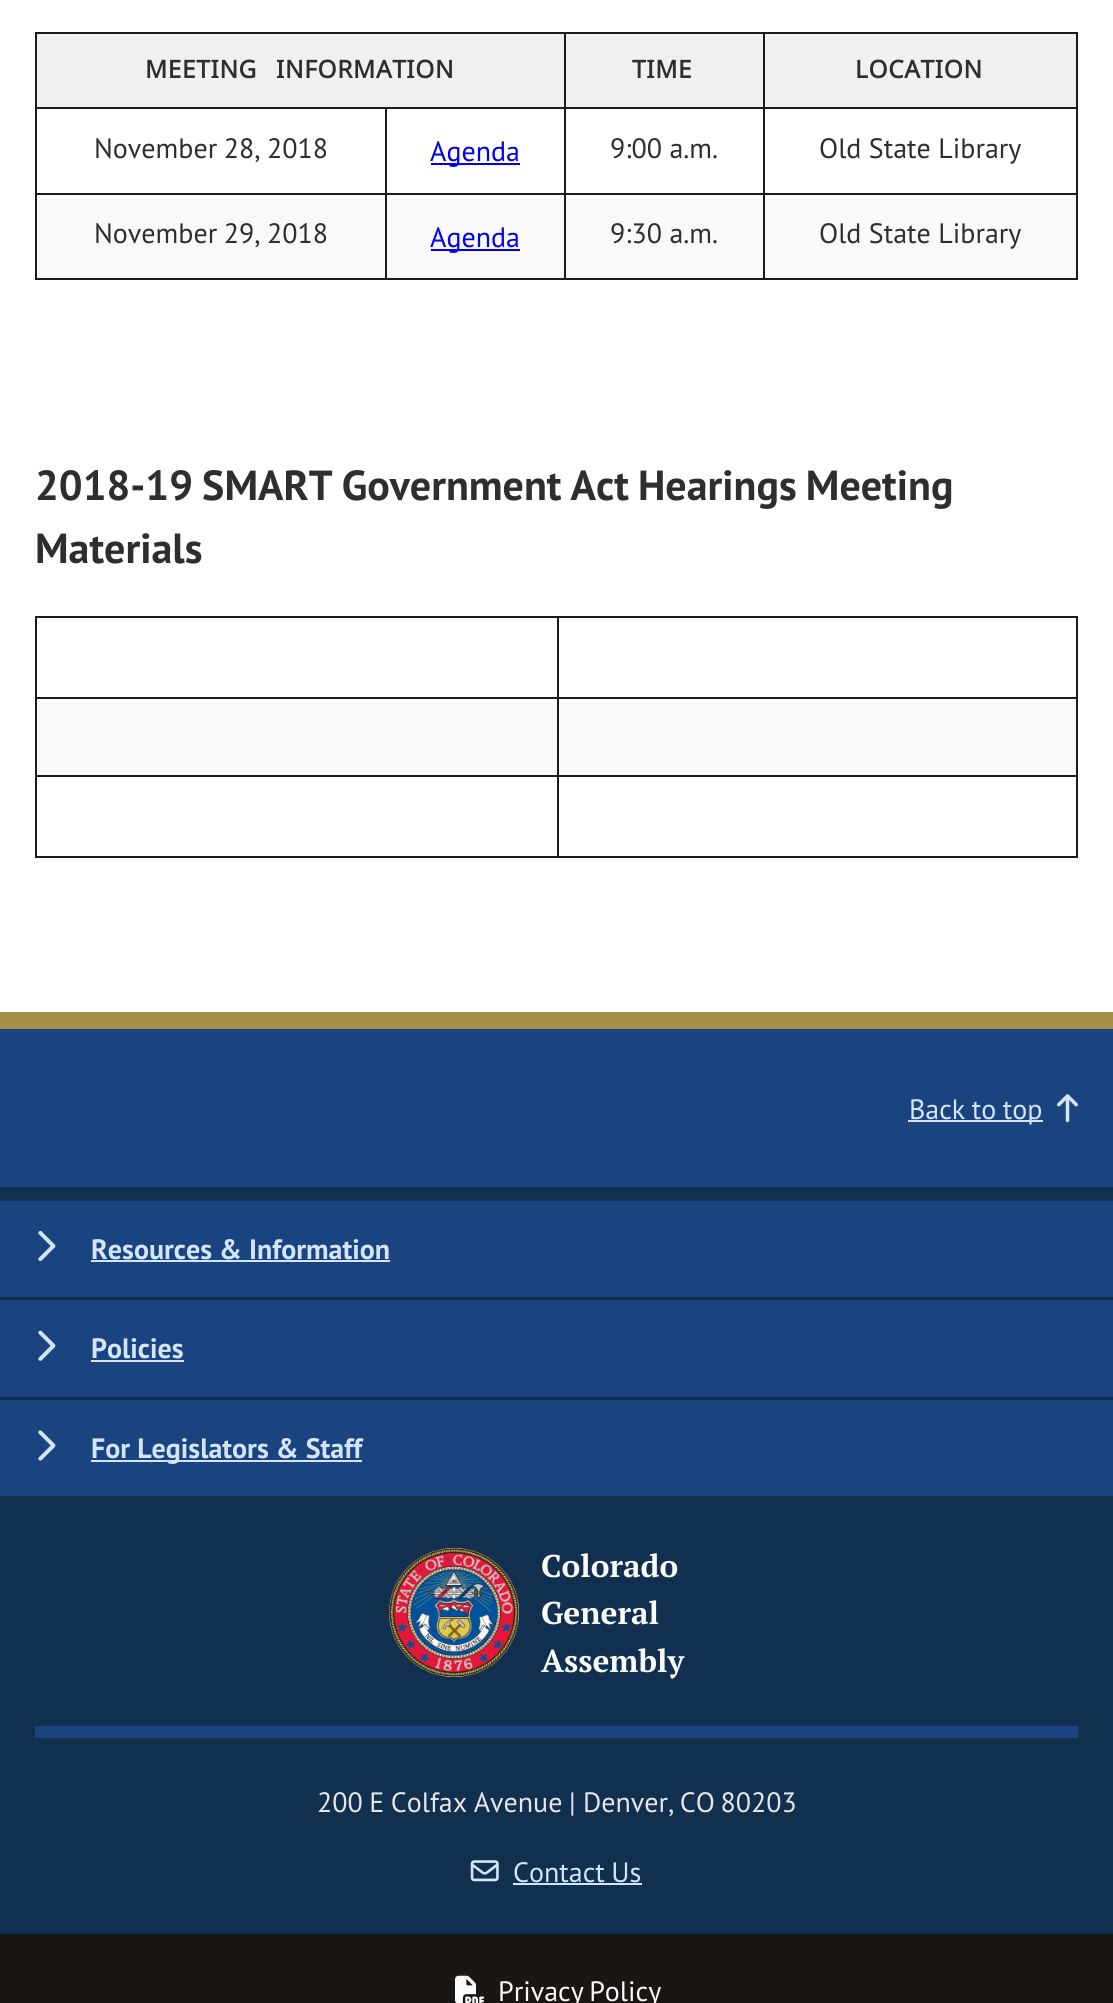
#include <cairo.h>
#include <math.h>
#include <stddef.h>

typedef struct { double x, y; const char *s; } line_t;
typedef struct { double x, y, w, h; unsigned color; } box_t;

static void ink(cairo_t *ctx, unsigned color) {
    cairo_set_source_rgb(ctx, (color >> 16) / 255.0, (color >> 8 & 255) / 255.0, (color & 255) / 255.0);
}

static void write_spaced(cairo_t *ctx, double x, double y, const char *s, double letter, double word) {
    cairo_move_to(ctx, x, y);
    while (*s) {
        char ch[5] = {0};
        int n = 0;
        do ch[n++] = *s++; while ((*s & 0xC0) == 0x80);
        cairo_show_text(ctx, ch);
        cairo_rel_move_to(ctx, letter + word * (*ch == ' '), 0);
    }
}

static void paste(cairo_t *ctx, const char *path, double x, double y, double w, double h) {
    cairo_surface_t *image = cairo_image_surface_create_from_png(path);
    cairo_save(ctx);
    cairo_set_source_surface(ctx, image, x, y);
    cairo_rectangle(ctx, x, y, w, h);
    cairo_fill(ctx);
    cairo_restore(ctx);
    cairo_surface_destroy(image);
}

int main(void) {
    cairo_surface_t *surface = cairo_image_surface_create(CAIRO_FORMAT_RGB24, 1113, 2003);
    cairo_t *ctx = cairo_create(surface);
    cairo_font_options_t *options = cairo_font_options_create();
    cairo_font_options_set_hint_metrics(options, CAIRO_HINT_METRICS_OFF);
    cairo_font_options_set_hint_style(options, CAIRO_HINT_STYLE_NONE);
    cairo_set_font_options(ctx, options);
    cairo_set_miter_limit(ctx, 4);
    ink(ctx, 0xFFFFFF);
    cairo_paint(ctx);
    {
        static const box_t items[] = {
            {37, 34, 527, 73, 0xF0F0F0},
            {763, 32, 315, 2, 0x1B1B1B},
            {763, 107, 315, 2, 0x1B1B1B},
            {763, 193, 315, 2, 0x1B1B1B},
            {37, 195, 1039, 83, 0xF9F9F9},
            {1076, 193, 2, 87, 0x1B1B1B},
            {763, 278, 315, 2, 0x1B1B1B},
            {763, 193, 2, 87, 0x1B1B1B},
            {564, 193, 201, 2, 0x1B1B1B},
            {763, 107, 2, 87, 0x1B1B1B},
            {564, 107, 201, 2, 0x1B1B1B},
            {763, 32, 2, 77, 0x1B1B1B},
            {564, 32, 201, 2, 0x1B1B1B},
            {564, 278, 201, 2, 0x1B1B1B},
            {564, 193, 2, 87, 0x1B1B1B},
            {385, 193, 180, 2, 0x1B1B1B},
            {564, 107, 2, 87, 0x1B1B1B},
            {385, 107, 180, 2, 0x1B1B1B},
            {564, 32, 2, 77, 0x1B1B1B},
            {35, 32, 530, 2, 0x1B1B1B},
            {385, 278, 180, 2, 0x1B1B1B},
            {385, 193, 2, 87, 0x1B1B1B},
            {35, 193, 352, 2, 0x1B1B1B},
            {385, 107, 2, 87, 0x1B1B1B},
            {35, 107, 352, 2, 0x1B1B1B},
            {35, 278, 352, 2, 0x1B1B1B},
            {35, 193, 2, 87, 0x1B1B1B},
            {35, 107, 2, 87, 0x1B1B1B},
            {35, 32, 2, 77, 0x1B1B1B},
        };
        for (size_t i = 0; i < sizeof items / sizeof *items; i++) {
            ink(ctx, items[i].color);
            cairo_rectangle(ctx, items[i].x, items[i].y, items[i].w, items[i].h);
            cairo_fill(ctx);
        }
    }
    cairo_select_font_face(ctx, "Noto Sans", CAIRO_FONT_SLANT_NORMAL, CAIRO_FONT_WEIGHT_BOLD);
    cairo_set_font_size(ctx, 24.5);
    ink(ctx, 0x2D2E2F);
    write_spaced(ctx, 145, 78, "MEETING INFORMATION", 0.6, 12);
    ink(ctx, 0xF0F0F0);
    cairo_rectangle(ctx, 566, 34, 197, 73);
    cairo_fill(ctx);
    ink(ctx, 0x2D2E2F);
    write_spaced(ctx, 632, 78, "TIME", 0.6, 0);
    {
        static const box_t items[] = {
            {765, 34, 311, 73, 0xF0F0F0},
            {1076, 107, 2, 87, 0x1B1B1B},
            {1076, 32, 2, 77, 0x1B1B1B},
        };
        for (size_t i = 0; i < sizeof items / sizeof *items; i++) {
            ink(ctx, items[i].color);
            cairo_rectangle(ctx, items[i].x, items[i].y, items[i].w, items[i].h);
            cairo_fill(ctx);
        }
    }
    ink(ctx, 0x2D2E2F);
    write_spaced(ctx, 855, 78, "LOCATION", 0.6, 0);
    cairo_select_font_face(ctx, "PT Sans", CAIRO_FONT_SLANT_NORMAL, CAIRO_FONT_WEIGHT_NORMAL);
    cairo_set_font_size(ctx, 28);
    write_spaced(ctx, 94, 158, "November 28, 2018", 0, -1);
    ink(ctx, 0x0000EE);
    cairo_rectangle(ctx, 431, 163, 89, 2);
    cairo_fill(ctx);
    cairo_move_to(ctx, 430, 161);
    cairo_show_text(ctx, "Agenda");
    ink(ctx, 0x2D2E2F);
    cairo_move_to(ctx, 610, 158);
    cairo_show_text(ctx, "9:00 a.m.");
    cairo_move_to(ctx, 819, 158);
    cairo_show_text(ctx, "Old State Library");
    write_spaced(ctx, 94, 243, "November 29, 2018", 0, -1);
    ink(ctx, 0x0000EE);
    cairo_rectangle(ctx, 431, 249, 89, 2);
    cairo_fill(ctx);
    cairo_move_to(ctx, 430, 247);
    cairo_show_text(ctx, "Agenda");
    ink(ctx, 0x2D2E2F);
    cairo_move_to(ctx, 610, 243);
    cairo_show_text(ctx, "9:30 a.m.");
    cairo_move_to(ctx, 819, 243);
    cairo_show_text(ctx, "Old State Library");
    cairo_select_font_face(ctx, "PT Sans", CAIRO_FONT_SLANT_NORMAL, CAIRO_FONT_WEIGHT_BOLD);
    cairo_set_font_size(ctx, 42);
    write_spaced(ctx, 35, 500, "2018-19 SMART Government Act Hearings Meeting", 0, -1.5);
    cairo_move_to(ctx, 35, 563);
    cairo_show_text(ctx, "Materials");
    {
        static const box_t items[] = {
            {557, 616, 521, 2, 0x1B1B1B},
            {557, 697, 521, 2, 0x1B1B1B},
            {37, 699, 1039, 76, 0xF9F9F9},
            {557, 775, 521, 2, 0x1B1B1B},
            {1076, 775, 2, 83, 0x1B1B1B},
            {557, 856, 521, 2, 0x1B1B1B},
            {557, 775, 2, 83, 0x1B1B1B},
            {35, 775, 523, 2, 0x1B1B1B},
            {557, 697, 2, 80, 0x1B1B1B},
            {35, 697, 523, 2, 0x1B1B1B},
            {557, 616, 2, 82, 0x1B1B1B},
            {35, 616, 523, 2, 0x1B1B1B},
            {35, 856, 523, 2, 0x1B1B1B},
            {35, 775, 2, 83, 0x1B1B1B},
            {35, 697, 2, 80, 0x1B1B1B},
            {35, 616, 2, 82, 0x1B1B1B},
            {1076, 697, 2, 80, 0x1B1B1B},
            {1076, 616, 2, 82, 0x1B1B1B},
            {0, 1029, 1113, 158, 0x1A4480},
            {0, 1012, 1113, 17, 0xA88F48},
            {908, 1120, 135, 2, 0xD4E5FF},
        };
        for (size_t i = 0; i < sizeof items / sizeof *items; i++) {
            ink(ctx, items[i].color);
            cairo_rectangle(ctx, items[i].x, items[i].y, items[i].w, items[i].h);
            cairo_fill(ctx);
        }
    }
    cairo_select_font_face(ctx, "PT Sans", CAIRO_FONT_SLANT_NORMAL, CAIRO_FONT_WEIGHT_NORMAL);
    cairo_set_font_size(ctx, 28);
    write_spaced(ctx, 909, 1119, "Back to top", 0, -1);
    paste(ctx, "media/1.png", 1057, 1094, 21, 29);
    ink(ctx, 0x112F4E);
    cairo_rectangle(ctx, 0, 1187, 1113, 747);
    cairo_fill(ctx);
    ink(ctx, 0x1A4480);
    cairo_rectangle(ctx, 0, 1201, 1113, 96);
    cairo_fill(ctx);
    paste(ctx, "media/2.png", 38, 1230, 18, 32);
    cairo_select_font_face(ctx, "PT Sans", CAIRO_FONT_SLANT_NORMAL, CAIRO_FONT_WEIGHT_BOLD);
    ink(ctx, 0xD4E5FF);
    cairo_move_to(ctx, 91, 1259);
    cairo_show_text(ctx, "Resources & Information");
    cairo_rectangle(ctx, 91, 1260, 299, 2);
    cairo_fill(ctx);
    ink(ctx, 0x1A4480);
    cairo_rectangle(ctx, 0, 1300, 1113, 97);
    cairo_fill(ctx);
    paste(ctx, "media/3.png", 38, 1330, 18, 31);
    ink(ctx, 0xD4E5FF);
    cairo_move_to(ctx, 91, 1358);
    cairo_show_text(ctx, "Policies");
    cairo_rectangle(ctx, 91, 1360, 93, 2);
    cairo_fill(ctx);
    ink(ctx, 0x1A4480);
    cairo_rectangle(ctx, 0, 1400, 1113, 96);
    cairo_fill(ctx);
    paste(ctx, "media/4.png", 38, 1430, 18, 31);
    ink(ctx, 0xD4E5FF);
    cairo_rectangle(ctx, 91, 1460, 271, 2);
    cairo_fill(ctx);
    cairo_move_to(ctx, 91, 1458);
    cairo_show_text(ctx, "For Legislators & Staff");
    paste(ctx, "media/5.png", 388, 1547, 132, 131);
    cairo_select_font_face(ctx, "PT Serif", CAIRO_FONT_SLANT_NORMAL, CAIRO_FONT_WEIGHT_BOLD);
    cairo_set_font_size(ctx, 31.5);
    ink(ctx, 0xFCFCFC);
    {
        static const line_t items[] = {
            {541, 1577, "Colorado"},
            {541, 1624, "General"},
            {541, 1672, "Assembly"},
        };
        for (size_t i = 0; i < sizeof items / sizeof *items; i++) {
            cairo_move_to(ctx, items[i].x, items[i].y);
            cairo_show_text(ctx, items[i].s);
        }
    }
    ink(ctx, 0x1A4480);
    cairo_rectangle(ctx, 35, 1726, 1043, 12);
    cairo_fill(ctx);
    cairo_select_font_face(ctx, "PT Sans", CAIRO_FONT_SLANT_NORMAL, CAIRO_FONT_WEIGHT_NORMAL);
    cairo_set_font_size(ctx, 28);
    ink(ctx, 0xE6E6E6);
    write_spaced(ctx, 317, 1812, "200 E Colfax Avenue", 0, -1);
    cairo_move_to(ctx, 569, 1812);
    cairo_show_text(ctx, "|");
    write_spaced(ctx, 583, 1812, "Denver, CO 80203", 0, -2);
    paste(ctx, "media/6.png", 470, 1860, 29, 22);
    ink(ctx, 0xD4E5FF);
    write_spaced(ctx, 513, 1882, "Contact Us", 0, -1);
    cairo_rectangle(ctx, 513, 1883, 129, 2);
    cairo_fill(ctx);
    ink(ctx, 0x1A1614);
    cairo_rectangle(ctx, 0, 1934, 1113, 69);
    cairo_fill(ctx);
    paste(ctx, "media/7.png", 455, 1975, 30, 28);
    ink(ctx, 0xFCFCFC);
    write_spaced(ctx, 498, 2001, "Privacy Policy", 0, -2);
    cairo_surface_write_to_png(surface, "image.png");
    cairo_font_options_destroy(options);
    cairo_destroy(ctx);
    cairo_surface_destroy(surface);
    return 0;
}
